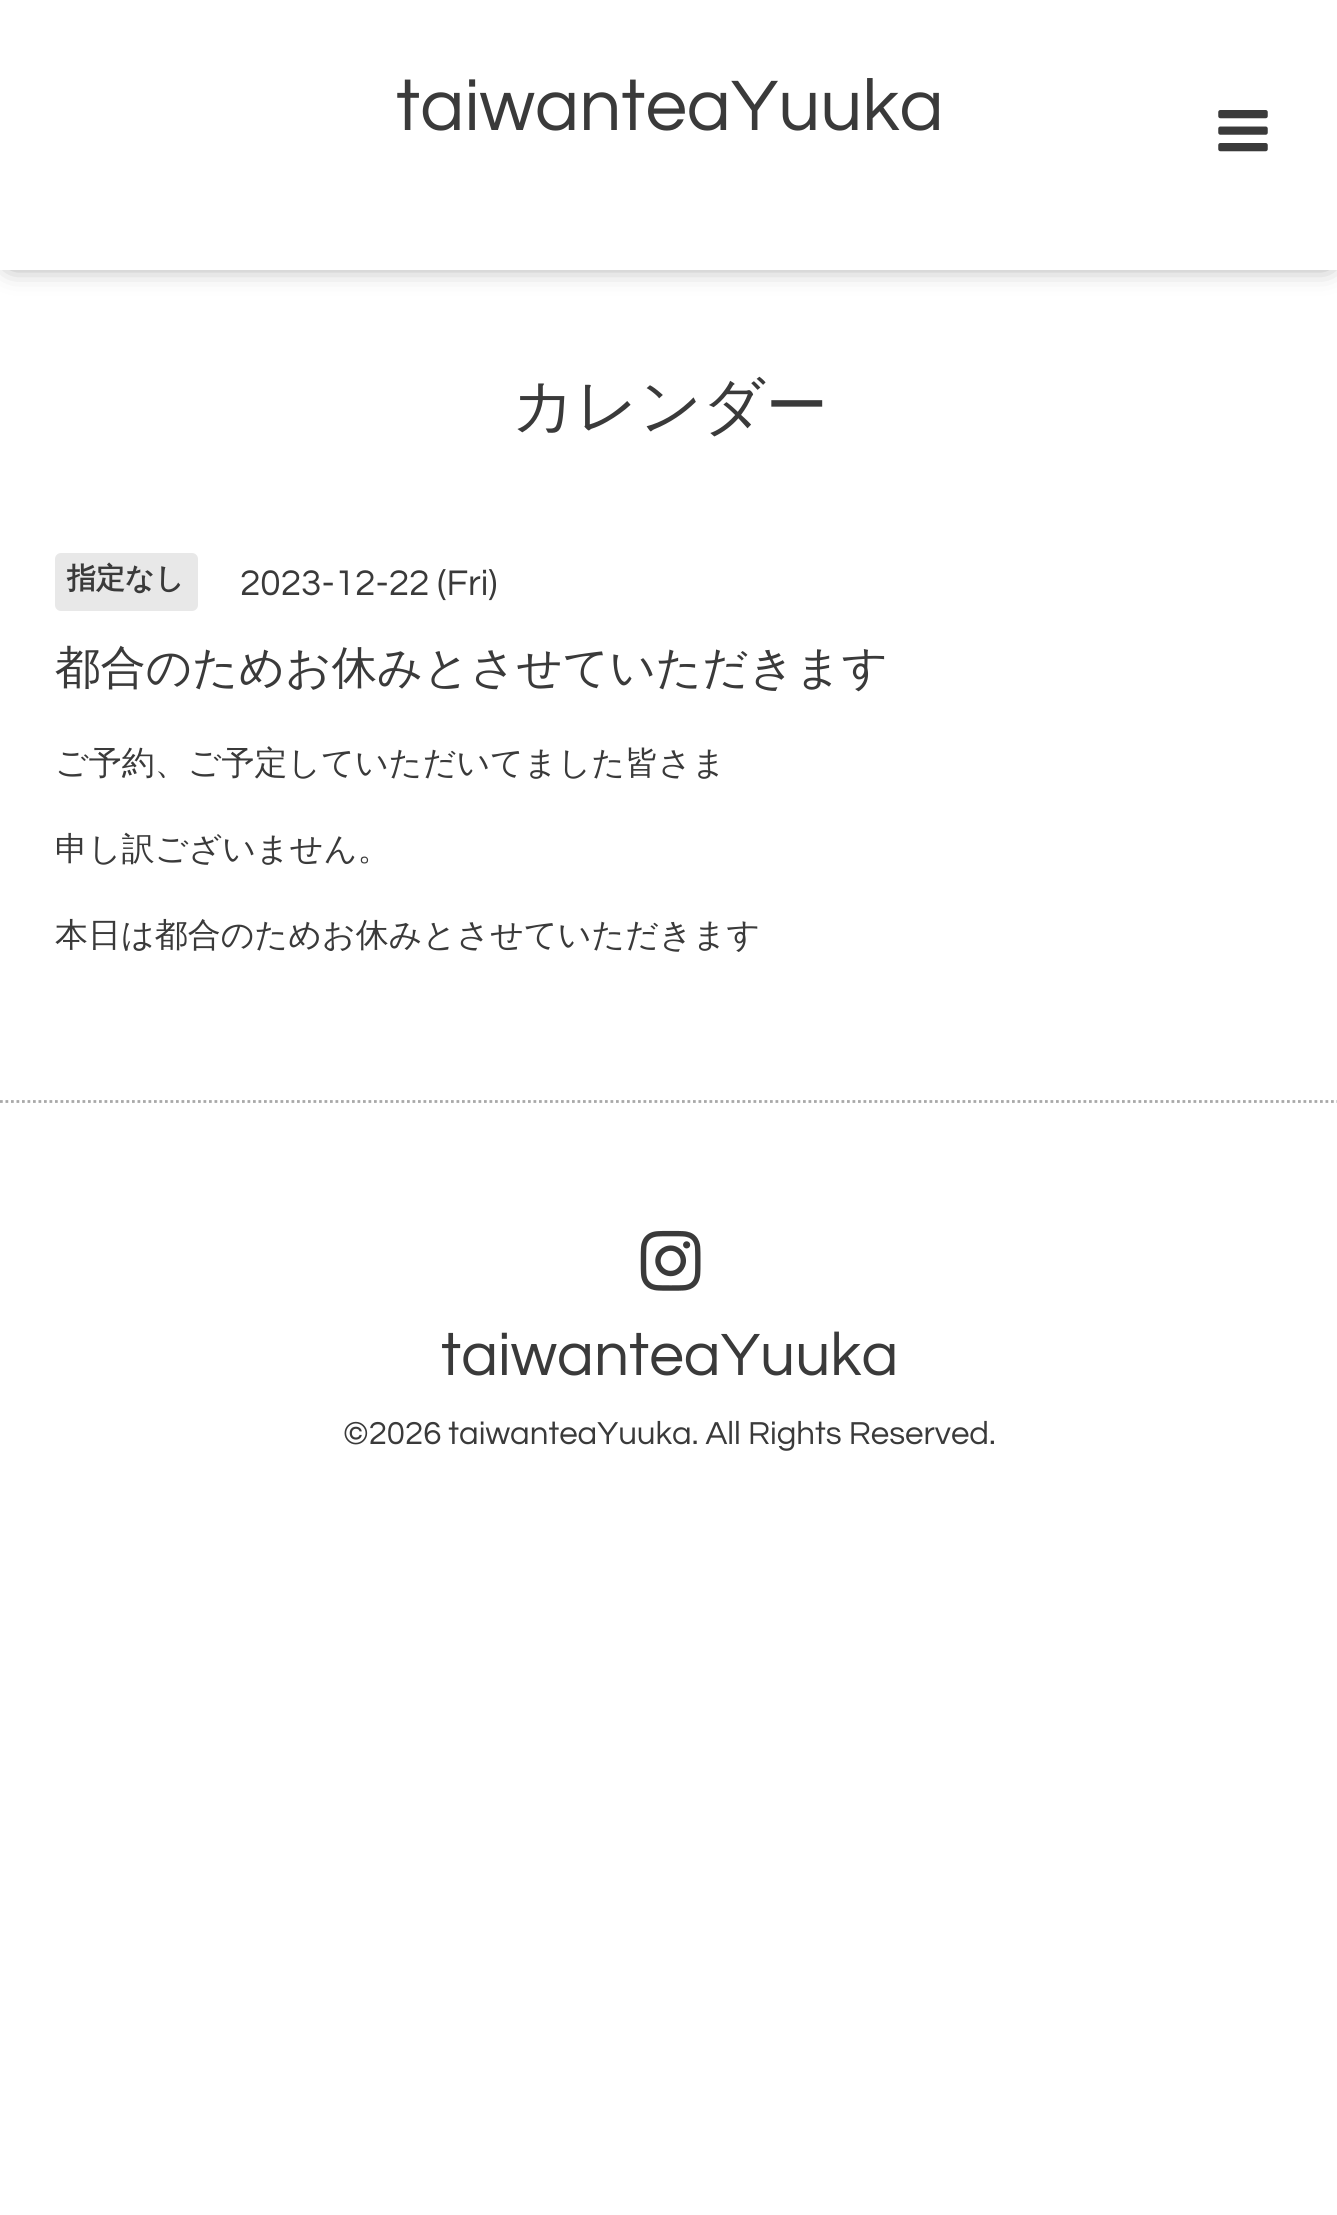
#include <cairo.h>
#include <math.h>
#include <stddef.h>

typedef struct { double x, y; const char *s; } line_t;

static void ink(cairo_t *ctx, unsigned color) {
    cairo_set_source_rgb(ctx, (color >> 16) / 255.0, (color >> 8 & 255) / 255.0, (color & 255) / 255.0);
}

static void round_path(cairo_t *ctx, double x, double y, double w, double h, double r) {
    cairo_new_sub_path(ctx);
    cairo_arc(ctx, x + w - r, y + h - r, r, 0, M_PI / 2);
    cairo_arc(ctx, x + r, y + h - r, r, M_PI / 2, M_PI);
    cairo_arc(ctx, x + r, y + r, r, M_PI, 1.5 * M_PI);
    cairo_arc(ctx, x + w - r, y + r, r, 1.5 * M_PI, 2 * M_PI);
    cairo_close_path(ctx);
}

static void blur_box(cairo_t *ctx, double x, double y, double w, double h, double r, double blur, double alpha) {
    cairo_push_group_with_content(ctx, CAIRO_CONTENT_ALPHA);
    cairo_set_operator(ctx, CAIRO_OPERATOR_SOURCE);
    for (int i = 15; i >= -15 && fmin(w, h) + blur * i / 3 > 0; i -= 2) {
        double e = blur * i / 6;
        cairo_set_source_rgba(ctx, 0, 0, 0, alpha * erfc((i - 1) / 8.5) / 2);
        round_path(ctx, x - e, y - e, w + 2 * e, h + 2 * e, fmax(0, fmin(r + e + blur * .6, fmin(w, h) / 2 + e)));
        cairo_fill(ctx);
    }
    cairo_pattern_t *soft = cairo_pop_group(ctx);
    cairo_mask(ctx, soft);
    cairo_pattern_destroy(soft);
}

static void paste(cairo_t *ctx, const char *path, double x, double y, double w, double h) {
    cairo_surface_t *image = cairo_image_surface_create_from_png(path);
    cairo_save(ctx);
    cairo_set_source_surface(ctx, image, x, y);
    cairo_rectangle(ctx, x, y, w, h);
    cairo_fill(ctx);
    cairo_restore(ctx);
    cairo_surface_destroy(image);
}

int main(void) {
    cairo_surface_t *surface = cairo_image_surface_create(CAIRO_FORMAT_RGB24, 1337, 2215);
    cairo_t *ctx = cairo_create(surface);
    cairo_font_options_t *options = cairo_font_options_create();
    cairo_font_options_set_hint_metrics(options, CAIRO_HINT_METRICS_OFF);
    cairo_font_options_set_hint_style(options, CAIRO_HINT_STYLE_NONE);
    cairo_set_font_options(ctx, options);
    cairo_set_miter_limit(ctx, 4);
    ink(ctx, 0xFFFFFF);
    cairo_paint(ctx);
    ink(ctx, 0x000000);
    blur_box(ctx, 11, 14, 1317, 247, 0, 14, 0.6);
    ink(ctx, 0xFFFFFF);
    cairo_rectangle(ctx, 0, 0, 1337, 270);
    cairo_fill(ctx);
    cairo_select_font_face(ctx, "Questrial", CAIRO_FONT_SLANT_NORMAL, CAIRO_FONT_WEIGHT_NORMAL);
    cairo_set_font_size(ctx, 74.25);
    ink(ctx, 0x3A3A3A);
    cairo_move_to(ctx, 396, 130);
    cairo_show_text(ctx, "taiwanteaYuuka");
    paste(ctx, "media/1.png", 1218, 110, 50, 42);
    cairo_select_font_face(ctx, "WenQuanYi Zen Hei Medium", CAIRO_FONT_SLANT_NORMAL, CAIRO_FONT_WEIGHT_NORMAL);
    cairo_set_font_size(ctx, 62);
    cairo_move_to(ctx, 512, 427);
    cairo_show_text(ctx, "カレンダー");
    ink(ctx, 0xE8E8E8);
    round_path(ctx, 55, 553, 143, 58, 6);
    cairo_fill(ctx);
    cairo_select_font_face(ctx, "WenQuanYi Zen Hei", CAIRO_FONT_SLANT_NORMAL, CAIRO_FONT_WEIGHT_BOLD);
    cairo_set_font_size(ctx, 29);
    ink(ctx, 0x3A3A3A);
    cairo_move_to(ctx, 67, 588);
    cairo_show_text(ctx, "指定なし");
    cairo_select_font_face(ctx, "Questrial", CAIRO_FONT_SLANT_NORMAL, CAIRO_FONT_WEIGHT_NORMAL);
    cairo_set_font_size(ctx, 37);
    cairo_move_to(ctx, 240, 595);
    cairo_show_text(ctx, "2023-12-22 (Fri)");
    cairo_select_font_face(ctx, "WenQuanYi Zen Hei Medium", CAIRO_FONT_SLANT_NORMAL, CAIRO_FONT_WEIGHT_NORMAL);
    cairo_set_font_size(ctx, 45.4);
    cairo_move_to(ctx, 55, 683);
    cairo_show_text(ctx, "都合のためお休みとさせていただきます");
    cairo_set_font_size(ctx, 33);
    {
        static const line_t items[] = {
            {55, 774, "ご予約、ご予定していただいてました皆さま"},
            {55, 860, "申し訳ございません。"},
            {55, 946, "本日は都合のためお休みとさせていただきます"},
        };
        for (size_t i = 0; i < sizeof items / sizeof *items; i++) {
            cairo_move_to(ctx, items[i].x, items[i].y);
            cairo_show_text(ctx, items[i].s);
        }
    }
    cairo_new_path(ctx);
    cairo_move_to(ctx, 0, 1101.5);
    cairo_line_to(ctx, 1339, 1101.5);
    ink(ctx, 0xA9A9A9);
    cairo_set_line_width(ctx, 2.8);
    cairo_set_dash(ctx, (double[]){2.75, 2.75}, 2, 0);
    cairo_stroke(ctx);
    paste(ctx, "media/2.png", 640, 1230, 61, 61);
    cairo_select_font_face(ctx, "Questrial", CAIRO_FONT_SLANT_NORMAL, CAIRO_FONT_WEIGHT_NORMAL);
    cairo_set_font_size(ctx, 62);
    ink(ctx, 0x3A3A3A);
    cairo_move_to(ctx, 441, 1375);
    cairo_show_text(ctx, "taiwanteaYuuka");
    cairo_set_font_size(ctx, 33);
    cairo_move_to(ctx, 343, 1444);
    cairo_show_text(ctx, "©2026 taiwanteaYuuka. All Rights Reserved.");
    cairo_surface_write_to_png(surface, "image.png");
    cairo_font_options_destroy(options);
    cairo_destroy(ctx);
    cairo_surface_destroy(surface);
    return 0;
}
